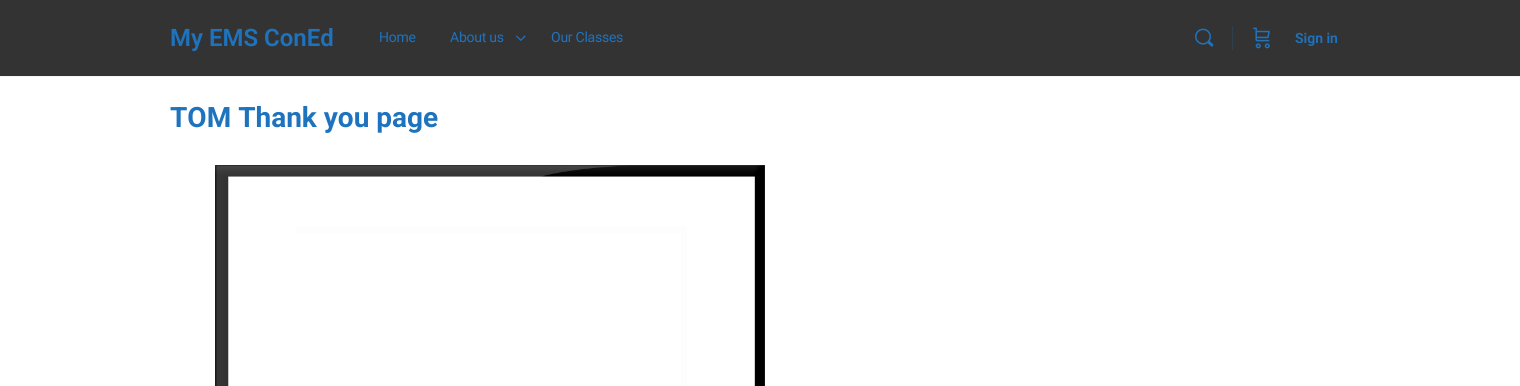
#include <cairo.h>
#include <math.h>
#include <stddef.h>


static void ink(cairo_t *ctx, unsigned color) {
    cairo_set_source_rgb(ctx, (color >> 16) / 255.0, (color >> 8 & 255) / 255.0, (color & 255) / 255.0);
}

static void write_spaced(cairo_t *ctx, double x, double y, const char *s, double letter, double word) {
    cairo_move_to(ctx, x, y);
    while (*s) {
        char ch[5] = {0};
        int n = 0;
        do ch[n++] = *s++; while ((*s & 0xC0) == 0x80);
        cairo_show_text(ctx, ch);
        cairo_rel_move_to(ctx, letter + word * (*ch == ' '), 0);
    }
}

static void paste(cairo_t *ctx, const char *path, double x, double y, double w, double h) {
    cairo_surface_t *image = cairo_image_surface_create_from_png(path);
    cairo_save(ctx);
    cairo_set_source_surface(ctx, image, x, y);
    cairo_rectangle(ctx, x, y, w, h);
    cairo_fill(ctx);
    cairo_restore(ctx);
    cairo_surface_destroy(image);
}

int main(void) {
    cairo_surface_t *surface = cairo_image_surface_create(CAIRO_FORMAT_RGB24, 1520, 386);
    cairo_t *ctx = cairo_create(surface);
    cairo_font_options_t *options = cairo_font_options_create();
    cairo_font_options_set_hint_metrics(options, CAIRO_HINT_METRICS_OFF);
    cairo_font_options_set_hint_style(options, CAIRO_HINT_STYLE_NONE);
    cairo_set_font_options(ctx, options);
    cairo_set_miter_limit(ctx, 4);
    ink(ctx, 0xFFFFFF);
    cairo_paint(ctx);
    ink(ctx, 0xF6F7F8);
    cairo_rectangle(ctx, 0, 76, 1520, 1);
    cairo_fill(ctx);
    ink(ctx, 0x333333);
    cairo_rectangle(ctx, 0, 0, 1520, 76);
    cairo_fill(ctx);
    cairo_select_font_face(ctx, "Roboto SemiBold", CAIRO_FONT_SLANT_NORMAL, CAIRO_FONT_WEIGHT_NORMAL);
    cairo_set_font_size(ctx, 24);
    ink(ctx, 0x1E73BE);
    cairo_move_to(ctx, 170, 46);
    cairo_show_text(ctx, "My EMS ConEd");
    cairo_select_font_face(ctx, "Roboto", CAIRO_FONT_SLANT_NORMAL, CAIRO_FONT_WEIGHT_NORMAL);
    cairo_set_font_size(ctx, 14);
    write_spaced(ctx, 379, 42, "Home", -0.25, 0);
    write_spaced(ctx, 450, 42, "About us", -0.25, 0);
    paste(ctx, "media/1.png", 516, 35, 10, 6);
    write_spaced(ctx, 551, 42, "Our Classes", -0.25, 0);
    paste(ctx, "media/2.png", 1195, 28, 19, 19);
    ink(ctx, 0x2F404F);
    cairo_rectangle(ctx, 1232, 26, 1, 24);
    cairo_fill(ctx);
    paste(ctx, "media/3.png", 1253, 27, 17, 22);
    cairo_select_font_face(ctx, "Roboto SemiBold", CAIRO_FONT_SLANT_NORMAL, CAIRO_FONT_WEIGHT_NORMAL);
    ink(ctx, 0x1E73BE);
    cairo_move_to(ctx, 1295, 43);
    cairo_show_text(ctx, "Sign in");
    cairo_select_font_face(ctx, "Roboto", CAIRO_FONT_SLANT_NORMAL, CAIRO_FONT_WEIGHT_BOLD);
    cairo_set_font_size(ctx, 28);
    cairo_move_to(ctx, 170, 127);
    cairo_show_text(ctx, "TOM Thank you page");
    paste(ctx, "media/4.png", 215, 165, 550, 221);
    cairo_surface_write_to_png(surface, "image.png");
    cairo_font_options_destroy(options);
    cairo_destroy(ctx);
    cairo_surface_destroy(surface);
    return 0;
}
